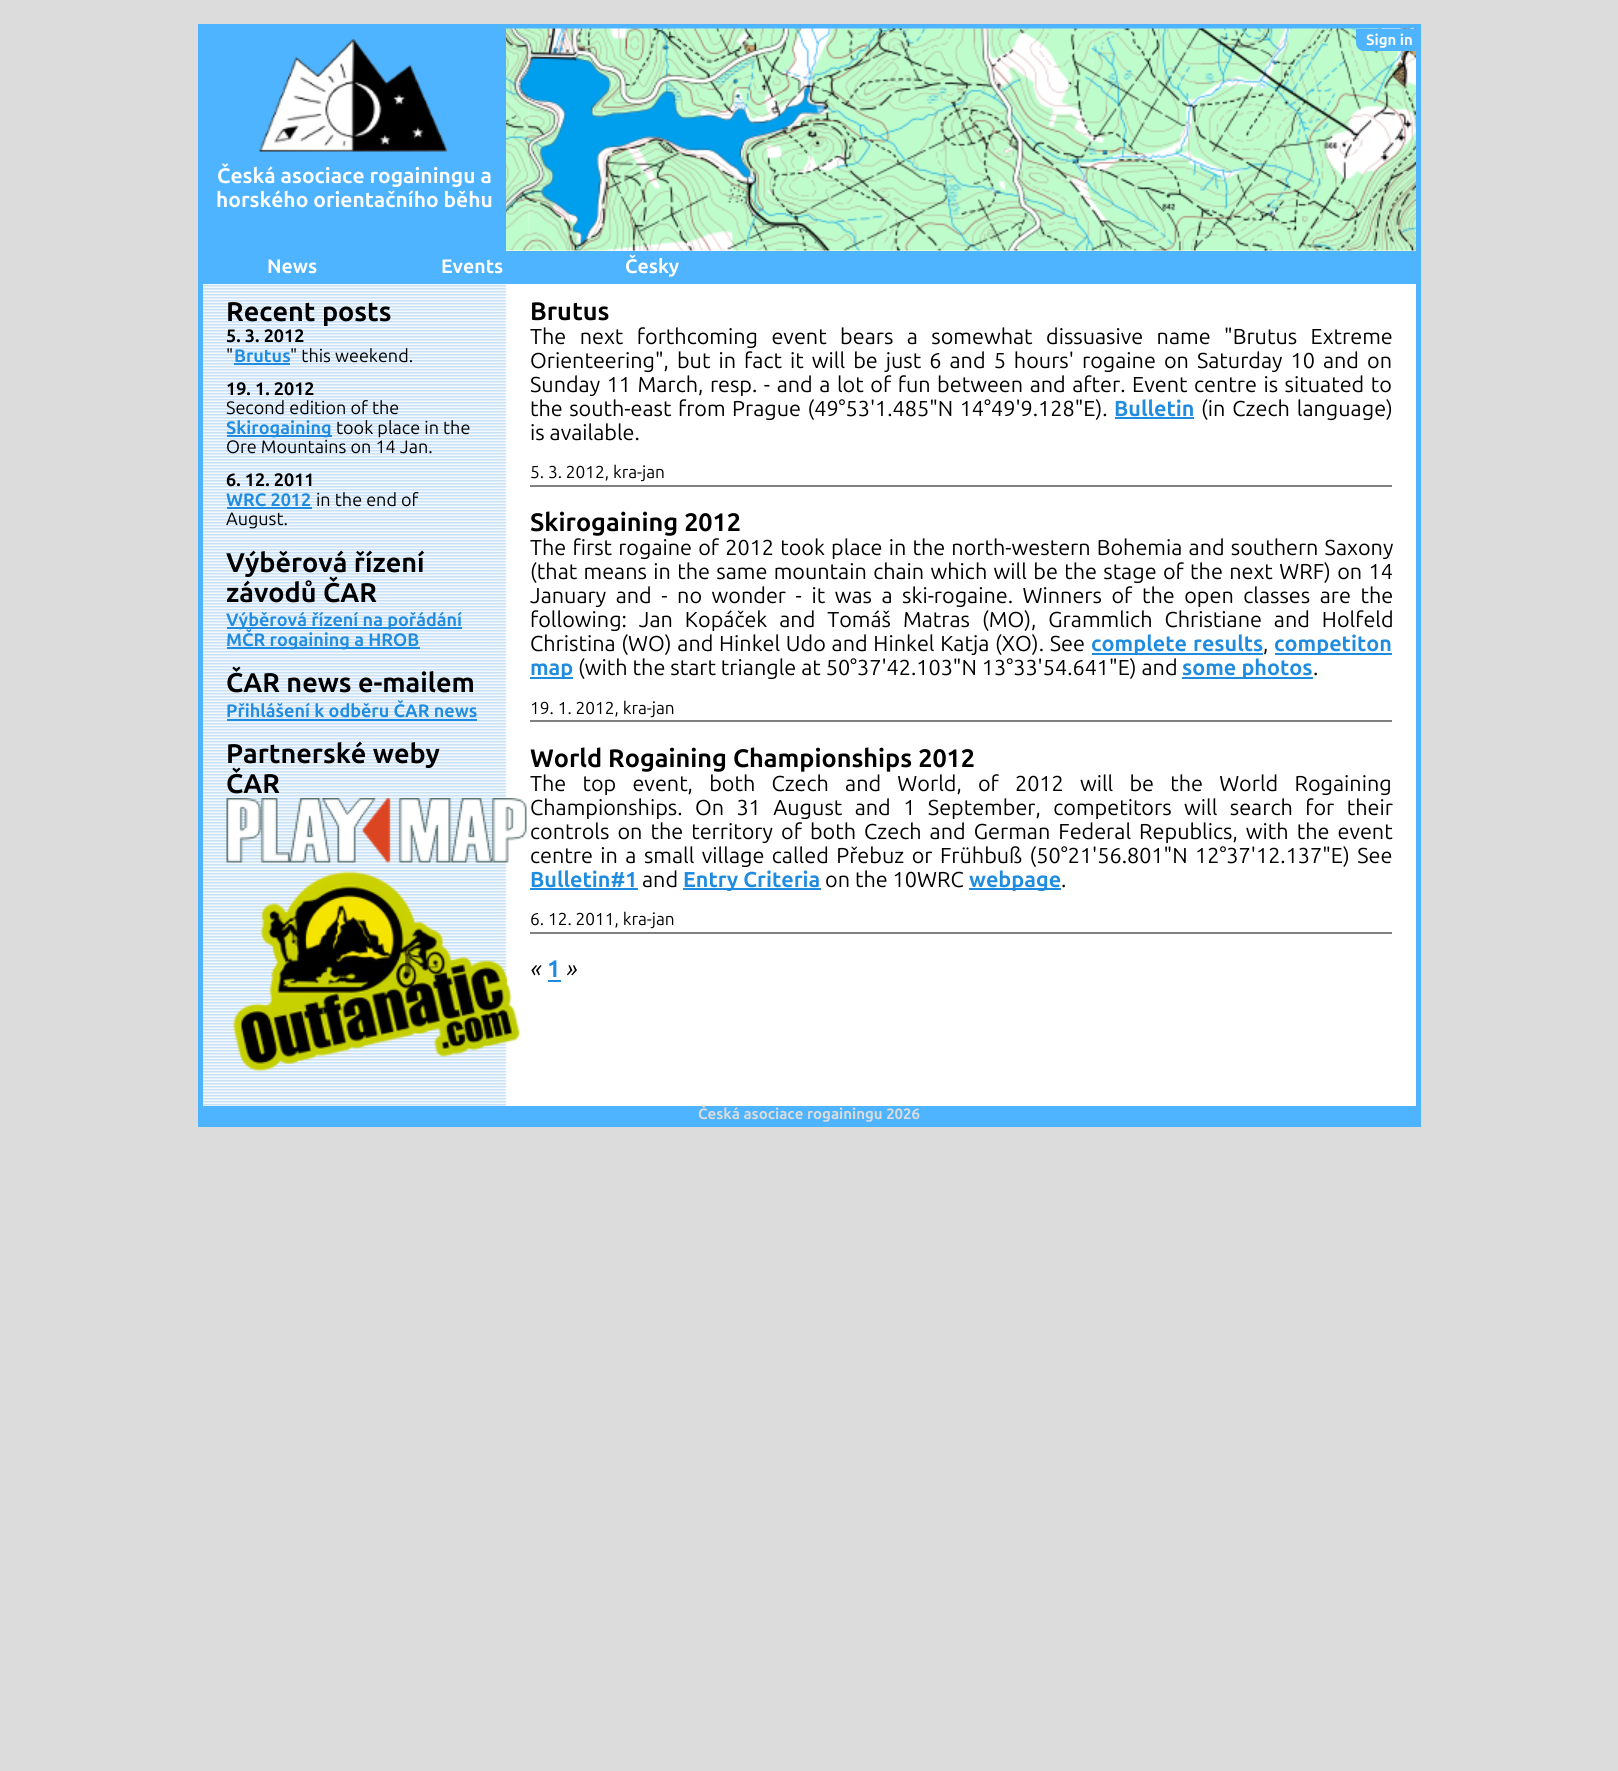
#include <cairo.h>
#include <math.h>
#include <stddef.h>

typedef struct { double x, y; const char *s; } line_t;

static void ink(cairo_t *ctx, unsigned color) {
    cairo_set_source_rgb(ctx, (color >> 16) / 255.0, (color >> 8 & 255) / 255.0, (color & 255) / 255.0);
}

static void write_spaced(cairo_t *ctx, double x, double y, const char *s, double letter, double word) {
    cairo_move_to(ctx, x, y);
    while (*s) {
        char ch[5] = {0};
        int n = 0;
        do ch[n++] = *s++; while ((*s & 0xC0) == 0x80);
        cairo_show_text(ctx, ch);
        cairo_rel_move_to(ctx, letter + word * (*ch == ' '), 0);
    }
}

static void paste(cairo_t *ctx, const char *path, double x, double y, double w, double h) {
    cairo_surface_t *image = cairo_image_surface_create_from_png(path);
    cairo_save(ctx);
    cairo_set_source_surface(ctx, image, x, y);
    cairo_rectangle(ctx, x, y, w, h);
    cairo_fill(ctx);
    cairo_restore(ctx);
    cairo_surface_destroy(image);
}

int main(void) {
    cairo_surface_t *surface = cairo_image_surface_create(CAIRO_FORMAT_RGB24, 1618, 1771);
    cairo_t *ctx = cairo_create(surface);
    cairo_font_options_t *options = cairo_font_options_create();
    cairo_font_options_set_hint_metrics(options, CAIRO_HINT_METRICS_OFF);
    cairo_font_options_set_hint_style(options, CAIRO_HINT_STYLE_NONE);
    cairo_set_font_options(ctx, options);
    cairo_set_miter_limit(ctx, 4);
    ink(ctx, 0xDCDCDC);
    cairo_paint(ctx);
    ink(ctx, 0xFFFFFF);
    cairo_rectangle(ctx, 203, 250, 1213, 856);
    cairo_fill(ctx);
    paste(ctx, "media/1.png", 203, 250, 304, 856);
    cairo_rectangle(ctx, 200.5, 26.5, 1218, 1098);
    ink(ctx, 0x4FB4FF);
    cairo_set_line_width(ctx, 5);
    cairo_stroke(ctx);
    paste(ctx, "media/2.png", 505, 28, 911, 223);
    cairo_rectangle(ctx, 203, 29, 303, 222);
    cairo_fill(ctx);
    paste(ctx, "media/3.png", 259, 38, 189, 114);
    cairo_select_font_face(ctx, "Ubuntu", CAIRO_FONT_SLANT_NORMAL, CAIRO_FONT_WEIGHT_BOLD);
    cairo_set_font_size(ctx, 21);
    ink(ctx, 0xFFFFFF);
    cairo_move_to(ctx, 217, 183);
    cairo_show_text(ctx, "Česká asociace rogainingu a");
    cairo_move_to(ctx, 216, 207);
    cairo_show_text(ctx, "horského orientačního běhu");
    ink(ctx, 0x4FB4FF);
    cairo_rectangle(ctx, 203, 1106, 1213, 16);
    cairo_fill(ctx);
    cairo_new_path(ctx);
    cairo_move_to(ctx, 1356, 29);
    cairo_line_to(ctx, 1416, 29);
    cairo_line_to(ctx, 1416, 51);
    cairo_line_to(ctx, 1364, 51);
    cairo_curve_to(ctx, 1359.5, 51, 1356, 47.5, 1356, 43);
    cairo_close_path(ctx);
    cairo_fill(ctx);
    cairo_set_font_size(ctx, 15);
    ink(ctx, 0xFFFFFF);
    cairo_move_to(ctx, 1366, 45);
    cairo_show_text(ctx, "Sign in");
    ink(ctx, 0xDCDCDC);
    cairo_move_to(ctx, 698, 1119);
    cairo_show_text(ctx, "Česká asociace rogainingu 2026");
    ink(ctx, 0x4FB4FF);
    cairo_rectangle(ctx, 203, 251, 1213, 33);
    cairo_fill(ctx);
    cairo_set_font_size(ctx, 19.5);
    ink(ctx, 0xFFFFFF);
    {
        static const line_t items[] = {
            {267, 273, "News"},
            {441, 273, "Events"},
            {625, 273, "Česky"},
        };
        for (size_t i = 0; i < sizeof items / sizeof *items; i++) {
            cairo_move_to(ctx, items[i].x, items[i].y);
            cairo_show_text(ctx, items[i].s);
        }
    }
    cairo_set_font_size(ctx, 27);
    ink(ctx, 0x000000);
    cairo_move_to(ctx, 226, 321);
    cairo_show_text(ctx, "Recent posts");
    cairo_set_font_size(ctx, 18);
    cairo_move_to(ctx, 226, 342);
    cairo_show_text(ctx, "5. 3. 2012");
    cairo_select_font_face(ctx, "Ubuntu", CAIRO_FONT_SLANT_NORMAL, CAIRO_FONT_WEIGHT_NORMAL);
    cairo_move_to(ctx, 226, 362);
    cairo_show_text(ctx, "\"");
    cairo_select_font_face(ctx, "Ubuntu", CAIRO_FONT_SLANT_NORMAL, CAIRO_FONT_WEIGHT_BOLD);
    ink(ctx, 0x208CDF);
    cairo_move_to(ctx, 234, 362);
    cairo_show_text(ctx, "Brutus");
    cairo_rectangle(ctx, 234, 363, 56, 2);
    cairo_fill(ctx);
    cairo_select_font_face(ctx, "Ubuntu", CAIRO_FONT_SLANT_NORMAL, CAIRO_FONT_WEIGHT_NORMAL);
    ink(ctx, 0x000000);
    cairo_move_to(ctx, 290, 362);
    cairo_show_text(ctx, "\" this weekend.");
    cairo_select_font_face(ctx, "Ubuntu", CAIRO_FONT_SLANT_NORMAL, CAIRO_FONT_WEIGHT_BOLD);
    cairo_move_to(ctx, 226, 395);
    cairo_show_text(ctx, "19. 1. 2012");
    cairo_select_font_face(ctx, "Ubuntu", CAIRO_FONT_SLANT_NORMAL, CAIRO_FONT_WEIGHT_NORMAL);
    cairo_move_to(ctx, 226, 414);
    cairo_show_text(ctx, "Second edition of the");
    ink(ctx, 0x208CDF);
    cairo_rectangle(ctx, 227, 435, 105, 2);
    cairo_fill(ctx);
    cairo_select_font_face(ctx, "Ubuntu", CAIRO_FONT_SLANT_NORMAL, CAIRO_FONT_WEIGHT_BOLD);
    cairo_move_to(ctx, 226, 434);
    cairo_show_text(ctx, "Skirogaining");
    cairo_select_font_face(ctx, "Ubuntu", CAIRO_FONT_SLANT_NORMAL, CAIRO_FONT_WEIGHT_NORMAL);
    ink(ctx, 0x000000);
    cairo_move_to(ctx, 336, 434);
    cairo_show_text(ctx, "took place in the");
    cairo_move_to(ctx, 226, 453);
    cairo_show_text(ctx, "Ore Mountains on 14 Jan.");
    cairo_select_font_face(ctx, "Ubuntu", CAIRO_FONT_SLANT_NORMAL, CAIRO_FONT_WEIGHT_BOLD);
    cairo_move_to(ctx, 226, 486);
    cairo_show_text(ctx, "6. 12. 2011");
    ink(ctx, 0x208CDF);
    cairo_move_to(ctx, 226, 506);
    cairo_show_text(ctx, "WRC 2012");
    cairo_rectangle(ctx, 227, 507, 85, 2);
    cairo_fill(ctx);
    cairo_select_font_face(ctx, "Ubuntu", CAIRO_FONT_SLANT_NORMAL, CAIRO_FONT_WEIGHT_NORMAL);
    ink(ctx, 0x000000);
    cairo_move_to(ctx, 316, 506);
    cairo_show_text(ctx, "in the end of");
    cairo_move_to(ctx, 226, 525);
    cairo_show_text(ctx, "August.");
    cairo_select_font_face(ctx, "Ubuntu", CAIRO_FONT_SLANT_NORMAL, CAIRO_FONT_WEIGHT_BOLD);
    cairo_set_font_size(ctx, 27);
    cairo_move_to(ctx, 226, 572);
    cairo_show_text(ctx, "Výběrová řízení");
    cairo_move_to(ctx, 226, 602);
    cairo_show_text(ctx, "závodů ČAR");
    ink(ctx, 0x208CDF);
    cairo_rectangle(ctx, 227, 627, 235, 2);
    cairo_fill(ctx);
    cairo_set_font_size(ctx, 18);
    cairo_move_to(ctx, 226, 626);
    cairo_show_text(ctx, "Výběrová řízení na pořádání");
    cairo_rectangle(ctx, 227, 647, 193, 2);
    cairo_fill(ctx);
    cairo_move_to(ctx, 226, 646);
    cairo_show_text(ctx, "MČR rogaining a HROB");
    cairo_set_font_size(ctx, 27);
    ink(ctx, 0x000000);
    cairo_move_to(ctx, 226, 692);
    cairo_show_text(ctx, "ČAR news e-mailem");
    cairo_set_font_size(ctx, 18);
    ink(ctx, 0x208CDF);
    cairo_move_to(ctx, 226, 717);
    cairo_show_text(ctx, "Přihlášení k odběru ČAR news");
    cairo_rectangle(ctx, 227, 719, 250, 2);
    cairo_fill(ctx);
    cairo_set_font_size(ctx, 27);
    ink(ctx, 0x000000);
    cairo_move_to(ctx, 226, 763);
    cairo_show_text(ctx, "Partnerské weby");
    cairo_move_to(ctx, 226, 793);
    cairo_show_text(ctx, "ČAR");
    paste(ctx, "media/4.png", 226, 798, 301, 65);
    paste(ctx, "media/5.png", 232, 871, 289, 201);
    ink(ctx, 0x808080);
    cairo_rectangle(ctx, 530, 485, 862, 2);
    cairo_fill(ctx);
    cairo_set_font_size(ctx, 25.25);
    ink(ctx, 0x000000);
    cairo_move_to(ctx, 530, 320);
    cairo_show_text(ctx, "Brutus");
    cairo_select_font_face(ctx, "Ubuntu", CAIRO_FONT_SLANT_NORMAL, CAIRO_FONT_WEIGHT_NORMAL);
    cairo_set_font_size(ctx, 21.6);
    write_spaced(ctx, 530, 344, "The next forthcoming event bears a somewhat dissuasive name \"Brutus Extreme", 0, 8.5);
    write_spaced(ctx, 530, 368, "Orienteering\", but in fact it will be just 6 and 5 hours' rogaine on Saturday 10 and on", 0, 3.1);
    write_spaced(ctx, 530, 392, "Sunday 11 March, resp. - and a lot of fun between and after. Event centre is situated to", 0, 1.6);
    write_spaced(ctx, 530, 416, "the south-east from Prague (49°53'1.485\"N 14°49'9.128\"E).", 0, 1.5);
    cairo_select_font_face(ctx, "Ubuntu", CAIRO_FONT_SLANT_NORMAL, CAIRO_FONT_WEIGHT_BOLD);
    ink(ctx, 0x208CDF);
    cairo_move_to(ctx, 1114, 416);
    cairo_show_text(ctx, "Bulletin");
    cairo_rectangle(ctx, 1115, 417, 79, 2);
    cairo_fill(ctx);
    cairo_select_font_face(ctx, "Ubuntu", CAIRO_FONT_SLANT_NORMAL, CAIRO_FONT_WEIGHT_NORMAL);
    ink(ctx, 0x000000);
    write_spaced(ctx, 1201, 416, "(in Czech language)", 0, 2);
    cairo_move_to(ctx, 530, 440);
    cairo_show_text(ctx, "is available.");
    cairo_set_font_size(ctx, 17.25);
    cairo_move_to(ctx, 530, 478);
    cairo_show_text(ctx, "5. 3. 2012, kra-jan");
    ink(ctx, 0x808080);
    cairo_rectangle(ctx, 530, 720, 862, 2);
    cairo_fill(ctx);
    cairo_select_font_face(ctx, "Ubuntu", CAIRO_FONT_SLANT_NORMAL, CAIRO_FONT_WEIGHT_BOLD);
    cairo_set_font_size(ctx, 25.25);
    ink(ctx, 0x000000);
    cairo_move_to(ctx, 530, 531);
    cairo_show_text(ctx, "Skirogaining 2012");
    cairo_select_font_face(ctx, "Ubuntu", CAIRO_FONT_SLANT_NORMAL, CAIRO_FONT_WEIGHT_NORMAL);
    cairo_set_font_size(ctx, 21.6);
    write_spaced(ctx, 530, 555, "The first rogaine of 2012 took place in the north-western Bohemia and southern Saxony", 0, 1.25);
    write_spaced(ctx, 530, 579, "(that means in the same mountain chain which will be the stage of the next WRF) on 14", 0, 1.4);
    write_spaced(ctx, 530, 603, "January and - no wonder - it was a ski-rogaine. Winners of the open classes are the", 0, 4.6);
    write_spaced(ctx, 530, 627, "following: Jan Kopáček and Tomáš Matras (MO), Grammlich Christiane and Holfeld", 0, 7);
    write_spaced(ctx, 530, 651, "Christina (WO) and Hinkel Udo and Hinkel Katja (XO). See", 0, 0.75);
    ink(ctx, 0x208CDF);
    cairo_rectangle(ctx, 1092, 653, 171, 2);
    cairo_fill(ctx);
    cairo_select_font_face(ctx, "Ubuntu", CAIRO_FONT_SLANT_NORMAL, CAIRO_FONT_WEIGHT_BOLD);
    write_spaced(ctx, 1091, 651, "complete results", 0, 1);
    cairo_select_font_face(ctx, "Ubuntu", CAIRO_FONT_SLANT_NORMAL, CAIRO_FONT_WEIGHT_NORMAL);
    ink(ctx, 0x000000);
    cairo_move_to(ctx, 1263, 651);
    cairo_show_text(ctx, ",");
    ink(ctx, 0x208CDF);
    cairo_rectangle(ctx, 1275, 653, 117, 2);
    cairo_fill(ctx);
    cairo_select_font_face(ctx, "Ubuntu", CAIRO_FONT_SLANT_NORMAL, CAIRO_FONT_WEIGHT_BOLD);
    cairo_move_to(ctx, 1274, 651);
    cairo_show_text(ctx, "competiton");
    cairo_rectangle(ctx, 530, 677, 43, 2);
    cairo_fill(ctx);
    cairo_move_to(ctx, 530, 675);
    cairo_show_text(ctx, "map");
    cairo_select_font_face(ctx, "Ubuntu", CAIRO_FONT_SLANT_NORMAL, CAIRO_FONT_WEIGHT_NORMAL);
    ink(ctx, 0x000000);
    cairo_move_to(ctx, 578, 675);
    cairo_show_text(ctx, "(with the start triangle at 50°37'42.103\"N 13°33'54.641\"E) and");
    ink(ctx, 0x208CDF);
    cairo_rectangle(ctx, 1182, 677, 131, 2);
    cairo_fill(ctx);
    cairo_select_font_face(ctx, "Ubuntu", CAIRO_FONT_SLANT_NORMAL, CAIRO_FONT_WEIGHT_BOLD);
    cairo_move_to(ctx, 1182, 675);
    cairo_show_text(ctx, "some photos");
    cairo_select_font_face(ctx, "Ubuntu", CAIRO_FONT_SLANT_NORMAL, CAIRO_FONT_WEIGHT_NORMAL);
    ink(ctx, 0x000000);
    cairo_move_to(ctx, 1313, 675);
    cairo_show_text(ctx, ".");
    cairo_set_font_size(ctx, 17.25);
    cairo_move_to(ctx, 530, 714);
    cairo_show_text(ctx, "19. 1. 2012, kra-jan");
    ink(ctx, 0x808080);
    cairo_rectangle(ctx, 530, 932, 862, 2);
    cairo_fill(ctx);
    cairo_select_font_face(ctx, "Ubuntu", CAIRO_FONT_SLANT_NORMAL, CAIRO_FONT_WEIGHT_BOLD);
    cairo_set_font_size(ctx, 25.25);
    ink(ctx, 0x000000);
    cairo_move_to(ctx, 530, 767);
    cairo_show_text(ctx, "World Rogaining Championships 2012");
    cairo_select_font_face(ctx, "Ubuntu", CAIRO_FONT_SLANT_NORMAL, CAIRO_FONT_WEIGHT_NORMAL);
    cairo_set_font_size(ctx, 21.6);
    write_spaced(ctx, 530, 791, "The top event, both Czech and World, of 2012 will be the World Rogaining", 0, 11.25);
    write_spaced(ctx, 530, 815, "Championships. On 31 August and 1 September, competitors will search for their", 0, 7.5);
    write_spaced(ctx, 530, 839, "controls on the territory of both Czech and German Federal Republics, with the event", 0, 3.1);
    write_spaced(ctx, 530, 863, "centre in a small village called Přebuz or Frühbuß (50°21'56.801\"N 12°37'12.137\"E) See", 0, 2.5);
    cairo_select_font_face(ctx, "Ubuntu", CAIRO_FONT_SLANT_NORMAL, CAIRO_FONT_WEIGHT_BOLD);
    ink(ctx, 0x208CDF);
    cairo_move_to(ctx, 530, 887);
    cairo_show_text(ctx, "Bulletin#1");
    cairo_rectangle(ctx, 530, 888, 108, 2);
    cairo_fill(ctx);
    cairo_select_font_face(ctx, "Ubuntu", CAIRO_FONT_SLANT_NORMAL, CAIRO_FONT_WEIGHT_NORMAL);
    ink(ctx, 0x000000);
    cairo_move_to(ctx, 642, 887);
    cairo_show_text(ctx, "and");
    ink(ctx, 0x208CDF);
    cairo_rectangle(ctx, 683, 888, 138, 2);
    cairo_fill(ctx);
    cairo_select_font_face(ctx, "Ubuntu", CAIRO_FONT_SLANT_NORMAL, CAIRO_FONT_WEIGHT_BOLD);
    cairo_move_to(ctx, 683, 887);
    cairo_show_text(ctx, "Entry Criteria");
    cairo_select_font_face(ctx, "Ubuntu", CAIRO_FONT_SLANT_NORMAL, CAIRO_FONT_WEIGHT_NORMAL);
    ink(ctx, 0x000000);
    cairo_move_to(ctx, 825, 887);
    cairo_show_text(ctx, "on the 10WRC");
    ink(ctx, 0x208CDF);
    cairo_rectangle(ctx, 969, 888, 92, 2);
    cairo_fill(ctx);
    cairo_select_font_face(ctx, "Ubuntu", CAIRO_FONT_SLANT_NORMAL, CAIRO_FONT_WEIGHT_BOLD);
    cairo_move_to(ctx, 969, 887);
    cairo_show_text(ctx, "webpage");
    cairo_select_font_face(ctx, "Ubuntu", CAIRO_FONT_SLANT_NORMAL, CAIRO_FONT_WEIGHT_NORMAL);
    ink(ctx, 0x000000);
    cairo_move_to(ctx, 1061, 887);
    cairo_show_text(ctx, ".");
    cairo_set_font_size(ctx, 17.25);
    cairo_move_to(ctx, 530, 925);
    cairo_show_text(ctx, "6. 12. 2011, kra-jan");
    cairo_select_font_face(ctx, "Ubuntu", CAIRO_FONT_SLANT_ITALIC, CAIRO_FONT_WEIGHT_NORMAL);
    cairo_set_font_size(ctx, 24);
    cairo_move_to(ctx, 530, 977);
    cairo_show_text(ctx, "«");
    cairo_select_font_face(ctx, "Ubuntu", CAIRO_FONT_SLANT_NORMAL, CAIRO_FONT_WEIGHT_BOLD);
    ink(ctx, 0x208CDF);
    cairo_move_to(ctx, 547, 977);
    cairo_show_text(ctx, "1");
    cairo_rectangle(ctx, 548, 980, 13, 2);
    cairo_fill(ctx);
    cairo_select_font_face(ctx, "Ubuntu", CAIRO_FONT_SLANT_ITALIC, CAIRO_FONT_WEIGHT_NORMAL);
    ink(ctx, 0x000000);
    cairo_move_to(ctx, 566, 977);
    cairo_show_text(ctx, "»");
    cairo_surface_write_to_png(surface, "image.png");
    cairo_font_options_destroy(options);
    cairo_destroy(ctx);
    cairo_surface_destroy(surface);
    return 0;
}
